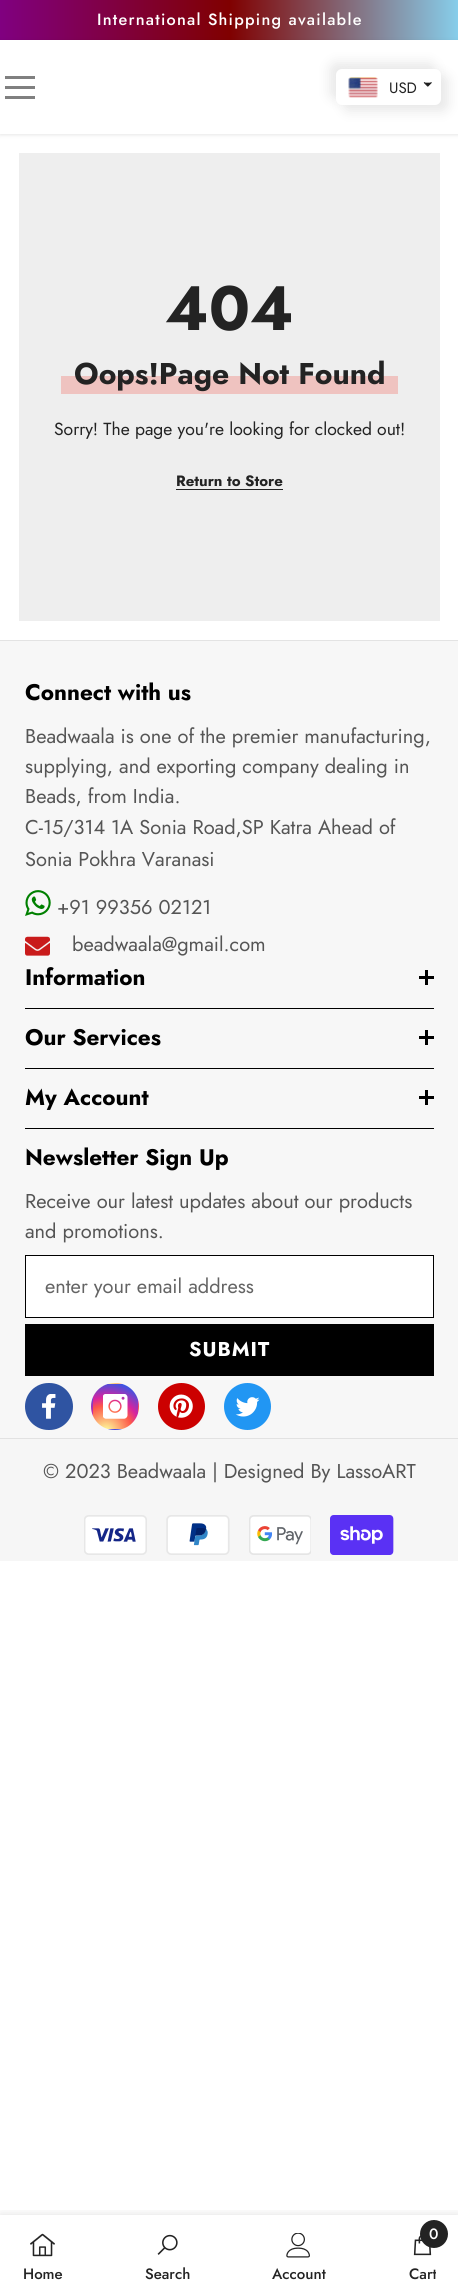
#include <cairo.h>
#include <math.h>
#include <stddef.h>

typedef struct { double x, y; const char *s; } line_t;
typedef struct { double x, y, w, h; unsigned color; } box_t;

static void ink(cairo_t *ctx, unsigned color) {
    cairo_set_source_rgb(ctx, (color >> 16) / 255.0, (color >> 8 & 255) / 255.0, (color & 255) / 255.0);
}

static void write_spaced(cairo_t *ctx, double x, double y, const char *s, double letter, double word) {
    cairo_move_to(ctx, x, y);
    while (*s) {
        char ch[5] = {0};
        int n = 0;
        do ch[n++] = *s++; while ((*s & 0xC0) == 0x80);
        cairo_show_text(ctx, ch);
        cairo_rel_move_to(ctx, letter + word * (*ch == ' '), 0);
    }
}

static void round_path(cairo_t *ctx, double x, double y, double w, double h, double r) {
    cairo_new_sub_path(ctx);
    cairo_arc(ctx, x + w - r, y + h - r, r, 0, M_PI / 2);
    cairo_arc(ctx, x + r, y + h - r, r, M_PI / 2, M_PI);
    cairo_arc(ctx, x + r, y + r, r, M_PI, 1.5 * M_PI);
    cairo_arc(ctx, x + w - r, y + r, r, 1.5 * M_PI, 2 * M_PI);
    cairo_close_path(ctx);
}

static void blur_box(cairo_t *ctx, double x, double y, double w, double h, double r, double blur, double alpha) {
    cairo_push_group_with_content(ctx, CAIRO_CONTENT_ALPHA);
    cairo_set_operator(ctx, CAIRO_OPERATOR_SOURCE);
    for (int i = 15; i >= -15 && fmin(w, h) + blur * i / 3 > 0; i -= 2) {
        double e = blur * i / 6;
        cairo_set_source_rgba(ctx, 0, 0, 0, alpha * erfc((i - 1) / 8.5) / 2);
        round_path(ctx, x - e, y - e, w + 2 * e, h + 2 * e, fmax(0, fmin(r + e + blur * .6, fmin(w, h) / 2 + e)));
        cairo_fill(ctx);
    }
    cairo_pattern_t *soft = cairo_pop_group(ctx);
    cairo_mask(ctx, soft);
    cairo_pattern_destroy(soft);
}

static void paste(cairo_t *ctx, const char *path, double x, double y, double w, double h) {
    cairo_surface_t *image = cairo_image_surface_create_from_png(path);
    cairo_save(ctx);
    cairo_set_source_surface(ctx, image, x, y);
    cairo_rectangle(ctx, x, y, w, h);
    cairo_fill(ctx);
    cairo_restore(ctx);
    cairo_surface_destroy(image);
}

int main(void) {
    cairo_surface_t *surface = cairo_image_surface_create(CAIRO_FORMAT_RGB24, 458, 2294);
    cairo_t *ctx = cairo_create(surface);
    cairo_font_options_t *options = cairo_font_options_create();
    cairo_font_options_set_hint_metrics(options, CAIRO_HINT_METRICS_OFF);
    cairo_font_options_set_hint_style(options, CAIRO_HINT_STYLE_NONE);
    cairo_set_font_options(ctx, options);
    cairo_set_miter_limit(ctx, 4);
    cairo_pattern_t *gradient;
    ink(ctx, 0xFFFFFF);
    cairo_paint(ctx);
    gradient = cairo_pattern_create_linear(0, 20, 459, 20);
    cairo_pattern_add_color_stop_rgba(gradient, 0, 0.502, 0, 0.502, 1);
    cairo_pattern_add_color_stop_rgba(gradient, 0.5, 0.502, 0, 0, 1);
    cairo_pattern_add_color_stop_rgba(gradient, 1, 0.529, 0.808, 0.922, 1);
    cairo_set_source(ctx, gradient);
    cairo_pattern_destroy(gradient);
    cairo_rectangle(ctx, 0, 0, 458, 40);
    cairo_fill(ctx);
    cairo_select_font_face(ctx, "Jost Medium", CAIRO_FONT_SLANT_NORMAL, CAIRO_FONT_WEIGHT_NORMAL);
    cairo_set_font_size(ctx, 16.25);
    ink(ctx, 0xFFFFFF);
    write_spaced(ctx, 97, 25, "International Shipping available", 1.25, 0);
    ink(ctx, 0x000000);
    blur_box(ctx, 0, 41, 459, 94, 0, 2, 0.1);
    {
        static const box_t items[] = {
            {0, 40, 458, 94, 0xFFFFFF},
            {5, 86, 30, 3, 0x808080},
            {5, 76, 30, 3, 0x808080},
            {5, 96, 30, 3, 0x808080},
        };
        for (size_t i = 0; i < sizeof items / sizeof *items; i++) {
            ink(ctx, items[i].color);
            cairo_rectangle(ctx, items[i].x, items[i].y, items[i].w, items[i].h);
            cairo_fill(ctx);
        }
    }
    ink(ctx, 0xE8E8E8);
    blur_box(ctx, 330, 63, 105, 36, 6, 6, 1);
    blur_box(ctx, 343, 75, 105, 36, 6, 6, 1);
    ink(ctx, 0xFFFFFF);
    round_path(ctx, 336, 69, 105, 36, 6);
    cairo_fill(ctx);
    paste(ctx, "media/1.png", 348, 77, 30, 21);
    cairo_select_font_face(ctx, "Jost", CAIRO_FONT_SLANT_NORMAL, CAIRO_FONT_WEIGHT_NORMAL);
    cairo_set_font_size(ctx, 15);
    ink(ctx, 0x232323);
    cairo_move_to(ctx, 389, 93);
    cairo_show_text(ctx, "USD");
    paste(ctx, "media/2.png", 423, 82, 9, 5);
    ink(ctx, 0xEEEEEE);
    cairo_rectangle(ctx, 19, 153, 421, 468);
    cairo_fill(ctx);
    cairo_select_font_face(ctx, "Jost", CAIRO_FONT_SLANT_NORMAL, CAIRO_FONT_WEIGHT_BOLD);
    cairo_set_font_size(ctx, 62.5);
    ink(ctx, 0x232323);
    cairo_move_to(ctx, 165, 330);
    cairo_show_text(ctx, "404");
    ink(ctx, 0xEFC3C0);
    cairo_rectangle(ctx, 61, 376, 337, 18);
    cairo_fill(ctx);
    cairo_set_font_size(ctx, 30);
    ink(ctx, 0x232323);
    cairo_move_to(ctx, 74, 384);
    cairo_show_text(ctx, "Oops!Page Not Found");
    cairo_select_font_face(ctx, "Jost", CAIRO_FONT_SLANT_NORMAL, CAIRO_FONT_WEIGHT_NORMAL);
    cairo_set_font_size(ctx, 17.5);
    cairo_move_to(ctx, 54, 435);
    cairo_show_text(ctx, "Sorry! The page you're looking for clocked out!");
    cairo_select_font_face(ctx, "Jost", CAIRO_FONT_SLANT_NORMAL, CAIRO_FONT_WEIGHT_BOLD);
    cairo_set_font_size(ctx, 15);
    cairo_move_to(ctx, 176, 486);
    cairo_show_text(ctx, "Return to Store");
    {
        static const box_t items[] = {
            {176, 489, 107, 1, 0x232323},
            {0, 641, 458, 797, 0xF7F7F7},
            {0, 640, 458, 1, 0xE3E3E3},
        };
        for (size_t i = 0; i < sizeof items / sizeof *items; i++) {
            ink(ctx, items[i].color);
            cairo_rectangle(ctx, items[i].x, items[i].y, items[i].w, items[i].h);
            cairo_fill(ctx);
        }
    }
    cairo_set_font_size(ctx, 22.5);
    ink(ctx, 0x000000);
    cairo_move_to(ctx, 25, 700);
    cairo_show_text(ctx, "Connect with us");
    cairo_select_font_face(ctx, "Jost", CAIRO_FONT_SLANT_NORMAL, CAIRO_FONT_WEIGHT_NORMAL);
    cairo_set_font_size(ctx, 20);
    ink(ctx, 0x555555);
    {
        static const line_t items[] = {
            {25, 743, "Beadwaala is one of the premier manufacturing,"},
            {25, 773, "supplying, and exporting company dealing in"},
            {25, 803, "Beads, from India."},
            {25, 834, "C-15/314 1A Sonia Road,SP Katra Ahead of"},
            {25, 866, "Sonia Pokhra Varanasi"},
        };
        for (size_t i = 0; i < sizeof items / sizeof *items; i++) {
            cairo_move_to(ctx, items[i].x, items[i].y);
            cairo_show_text(ctx, items[i].s);
        }
    }
    paste(ctx, "media/3.png", 25, 890, 26, 26);
    cairo_move_to(ctx, 57, 914);
    cairo_show_text(ctx, "+91 99356 02121");
    paste(ctx, "media/4.png", 25, 936, 25, 20);
    cairo_move_to(ctx, 72, 951);
    cairo_show_text(ctx, "beadwaala@gmail.com");
    ink(ctx, 0x000000);
    cairo_rectangle(ctx, 25, 1008, 409, 1);
    cairo_fill(ctx);
    cairo_select_font_face(ctx, "Jost", CAIRO_FONT_SLANT_NORMAL, CAIRO_FONT_WEIGHT_BOLD);
    cairo_set_font_size(ctx, 22.5);
    cairo_move_to(ctx, 25, 985);
    cairo_show_text(ctx, "Information");
    {
        static const box_t items[] = {
            {425, 970, 3, 15, 0x000000},
            {419, 976, 15, 3, 0x000000},
            {25, 1068, 409, 1, 0x000000},
        };
        for (size_t i = 0; i < sizeof items / sizeof *items; i++) {
            ink(ctx, items[i].color);
            cairo_rectangle(ctx, items[i].x, items[i].y, items[i].w, items[i].h);
            cairo_fill(ctx);
        }
    }
    cairo_move_to(ctx, 25, 1045);
    cairo_show_text(ctx, "Our Services");
    {
        static const box_t items[] = {
            {425, 1030, 3, 15, 0x000000},
            {419, 1036, 15, 3, 0x000000},
            {25, 1128, 409, 1, 0x000000},
        };
        for (size_t i = 0; i < sizeof items / sizeof *items; i++) {
            ink(ctx, items[i].color);
            cairo_rectangle(ctx, items[i].x, items[i].y, items[i].w, items[i].h);
            cairo_fill(ctx);
        }
    }
    cairo_move_to(ctx, 25, 1105);
    cairo_show_text(ctx, "My Account");
    cairo_rectangle(ctx, 425, 1090, 3, 15);
    cairo_fill(ctx);
    cairo_rectangle(ctx, 419, 1096, 15, 3);
    cairo_fill(ctx);
    cairo_move_to(ctx, 25, 1165);
    cairo_show_text(ctx, "Newsletter Sign Up");
    cairo_select_font_face(ctx, "Jost", CAIRO_FONT_SLANT_NORMAL, CAIRO_FONT_WEIGHT_NORMAL);
    cairo_set_font_size(ctx, 20);
    ink(ctx, 0x555555);
    cairo_move_to(ctx, 25, 1208);
    cairo_show_text(ctx, "Receive our latest updates about our products");
    cairo_move_to(ctx, 25, 1238);
    cairo_show_text(ctx, "and promotions.");
    ink(ctx, 0xFFFFFF);
    cairo_rectangle(ctx, 25.5, 1255.5, 408, 62);
    cairo_fill_preserve(ctx);
    ink(ctx, 0x000000);
    cairo_set_line_width(ctx, 1);
    cairo_stroke(ctx);
    ink(ctx, 0x646464);
    cairo_move_to(ctx, 45, 1293);
    cairo_show_text(ctx, "enter your email address");
    ink(ctx, 0x000000);
    cairo_rectangle(ctx, 25, 1324, 409, 52);
    cairo_fill(ctx);
    cairo_select_font_face(ctx, "Jost", CAIRO_FONT_SLANT_NORMAL, CAIRO_FONT_WEIGHT_BOLD);
    ink(ctx, 0xFFFFFF);
    write_spaced(ctx, 189, 1356, "SUBMIT", 1, 0);
    ink(ctx, 0x2F54A2);
    round_path(ctx, 25, 1383, 48, 47, 23.5);
    cairo_fill(ctx);
    paste(ctx, "media/5.png", 42, 1394, 14, 25);
    cairo_save(ctx);
    round_path(ctx, 91, 1383, 48, 47, 23.5);
    cairo_clip(ctx);
    gradient = cairo_pattern_create_radial(106, 1387, 0, 106, 1387, 58);
    cairo_pattern_add_color_stop_rgba(gradient, 0, 0.992, 0.957, 0.592, 1);
    cairo_pattern_add_color_stop_rgba(gradient, 0.05, 0.992, 0.957, 0.592, 1);
    cairo_pattern_add_color_stop_rgba(gradient, 0.45, 0.992, 0.349, 0.286, 1);
    cairo_pattern_add_color_stop_rgba(gradient, 0.6, 0.839, 0.141, 0.624, 1);
    cairo_pattern_add_color_stop_rgba(gradient, 0.9, 0.157, 0.353, 0.922, 1);
    cairo_set_source(ctx, gradient);
    cairo_pattern_destroy(gradient);
    cairo_rectangle(ctx, 108, 1383, 14, 1);
    cairo_fill(ctx);
    gradient = cairo_pattern_create_radial(61, 1432, 0, 61, 1432, 58);
    cairo_pattern_add_color_stop_rgba(gradient, 0, 0.992, 0.957, 0.592, 1);
    cairo_pattern_add_color_stop_rgba(gradient, 0.05, 0.992, 0.957, 0.592, 1);
    cairo_pattern_add_color_stop_rgba(gradient, 0.45, 0.992, 0.349, 0.286, 1);
    cairo_pattern_add_color_stop_rgba(gradient, 0.6, 0.839, 0.141, 0.624, 1);
    cairo_pattern_add_color_stop_rgba(gradient, 0.9, 0.157, 0.353, 0.922, 1);
    cairo_set_source(ctx, gradient);
    cairo_pattern_destroy(gradient);
    cairo_rectangle(ctx, 91, 1397, 2, 19);
    cairo_fill(ctx);
    gradient = cairo_pattern_create_radial(106, 1432, 0, 106, 1432, 58);
    cairo_pattern_add_color_stop_rgba(gradient, 0, 0.992, 0.957, 0.592, 1);
    cairo_pattern_add_color_stop_rgba(gradient, 0.05, 0.992, 0.957, 0.592, 1);
    cairo_pattern_add_color_stop_rgba(gradient, 0.45, 0.992, 0.349, 0.286, 1);
    cairo_pattern_add_color_stop_rgba(gradient, 0.6, 0.839, 0.141, 0.624, 1);
    cairo_pattern_add_color_stop_rgba(gradient, 0.9, 0.157, 0.353, 0.922, 1);
    cairo_set_source(ctx, gradient);
    cairo_pattern_destroy(gradient);
    cairo_rectangle(ctx, 93, 1384, 45, 45);
    cairo_fill(ctx);
    gradient = cairo_pattern_create_radial(151, 1432, 0, 151, 1432, 58);
    cairo_pattern_add_color_stop_rgba(gradient, 0, 0.992, 0.957, 0.592, 1);
    cairo_pattern_add_color_stop_rgba(gradient, 0.05, 0.992, 0.957, 0.592, 1);
    cairo_pattern_add_color_stop_rgba(gradient, 0.45, 0.992, 0.349, 0.286, 1);
    cairo_pattern_add_color_stop_rgba(gradient, 0.6, 0.839, 0.141, 0.624, 1);
    cairo_pattern_add_color_stop_rgba(gradient, 0.9, 0.157, 0.353, 0.922, 1);
    cairo_set_source(ctx, gradient);
    cairo_pattern_destroy(gradient);
    cairo_rectangle(ctx, 138, 1400, 1, 13);
    cairo_fill(ctx);
    gradient = cairo_pattern_create_radial(106, 1477, 0, 106, 1477, 58);
    cairo_pattern_add_color_stop_rgba(gradient, 0, 0.992, 0.957, 0.592, 1);
    cairo_pattern_add_color_stop_rgba(gradient, 0.05, 0.992, 0.957, 0.592, 1);
    cairo_pattern_add_color_stop_rgba(gradient, 0.45, 0.992, 0.349, 0.286, 1);
    cairo_pattern_add_color_stop_rgba(gradient, 0.6, 0.839, 0.141, 0.624, 1);
    cairo_pattern_add_color_stop_rgba(gradient, 0.9, 0.157, 0.353, 0.922, 1);
    cairo_set_source(ctx, gradient);
    cairo_pattern_destroy(gradient);
    cairo_rectangle(ctx, 108, 1429, 14, 1);
    cairo_fill(ctx);
    cairo_restore(ctx);
    paste(ctx, "media/6.png", 103, 1394, 25, 25);
    ink(ctx, 0xCC0000);
    cairo_arc(ctx, 181.5, 1406.5, 23.5, 0, 2 * M_PI);
    cairo_fill(ctx);
    paste(ctx, "media/7.png", 169, 1394, 24, 24);
    ink(ctx, 0x2196F3);
    cairo_arc(ctx, 247.5, 1406.5, 23.5, 0, 2 * M_PI);
    cairo_fill(ctx);
    paste(ctx, "media/8.png", 235, 1397, 25, 20);
    ink(ctx, 0xF6F6F6);
    cairo_rectangle(ctx, 0, 1439, 458, 122);
    cairo_fill(ctx);
    ink(ctx, 0xE2E2E2);
    cairo_rectangle(ctx, 0, 1438, 458, 1);
    cairo_fill(ctx);
    cairo_select_font_face(ctx, "Jost", CAIRO_FONT_SLANT_NORMAL, CAIRO_FONT_WEIGHT_NORMAL);
    ink(ctx, 0x555555);
    cairo_move_to(ctx, 43, 1478);
    cairo_show_text(ctx, "© 2023 Beadwaala | Designed By LassoART");
    paste(ctx, "media/9.png", 84, 1515, 63, 40);
    paste(ctx, "media/10.png", 166, 1515, 64, 40);
    paste(ctx, "media/11.png", 249, 1515, 62, 40);
    paste(ctx, "media/12.png", 330, 1515, 64, 40);
    cairo_save(ctx);
    cairo_rectangle(ctx, 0, 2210, 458, 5);
    cairo_clip(ctx);
    ink(ctx, 0x000000);
    blur_box(ctx, 0, 2215, 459, 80, 0, 5.5, 0.12);
    cairo_restore(ctx);
    paste(ctx, "media/13.png", 30, 2233, 25, 24);
    cairo_select_font_face(ctx, "Jost Medium", CAIRO_FONT_SLANT_NORMAL, CAIRO_FONT_WEIGHT_NORMAL);
    cairo_set_font_size(ctx, 15);
    ink(ctx, 0x232323);
    cairo_move_to(ctx, 23, 2279);
    cairo_show_text(ctx, "Home");
    paste(ctx, "media/14.png", 157, 2234, 21, 21);
    cairo_move_to(ctx, 145, 2279);
    cairo_show_text(ctx, "Search");
    paste(ctx, "media/15.png", 286, 2233, 24, 25);
    cairo_move_to(ctx, 272, 2279);
    cairo_show_text(ctx, "Account");
    paste(ctx, "media/16.png", 413, 2235, 19, 21);
    cairo_arc(ctx, 434, 2234, 14, 0, 2 * M_PI);
    cairo_fill(ctx);
    ink(ctx, 0xFFFFFF);
    cairo_move_to(ctx, 429, 2239);
    cairo_show_text(ctx, "0");
    ink(ctx, 0x232323);
    cairo_move_to(ctx, 409, 2279);
    cairo_show_text(ctx, "Cart");
    cairo_surface_write_to_png(surface, "image.png");
    cairo_font_options_destroy(options);
    cairo_destroy(ctx);
    cairo_surface_destroy(surface);
    return 0;
}
